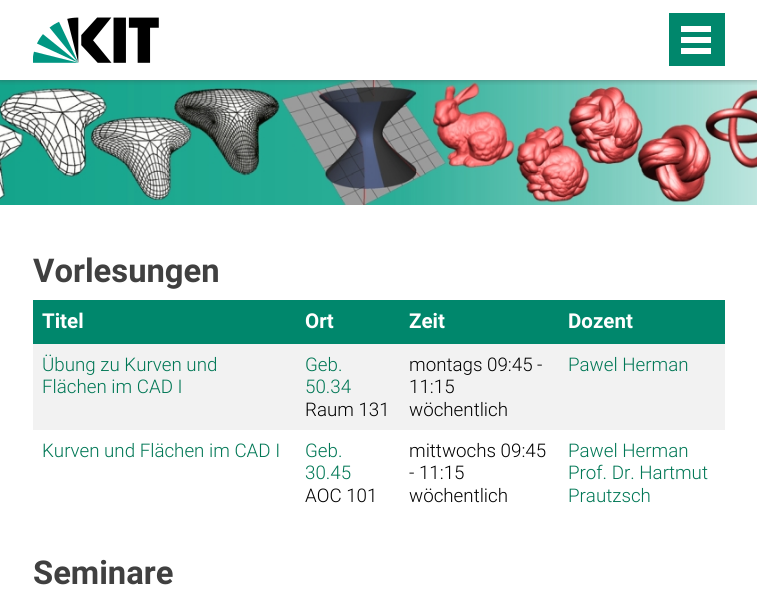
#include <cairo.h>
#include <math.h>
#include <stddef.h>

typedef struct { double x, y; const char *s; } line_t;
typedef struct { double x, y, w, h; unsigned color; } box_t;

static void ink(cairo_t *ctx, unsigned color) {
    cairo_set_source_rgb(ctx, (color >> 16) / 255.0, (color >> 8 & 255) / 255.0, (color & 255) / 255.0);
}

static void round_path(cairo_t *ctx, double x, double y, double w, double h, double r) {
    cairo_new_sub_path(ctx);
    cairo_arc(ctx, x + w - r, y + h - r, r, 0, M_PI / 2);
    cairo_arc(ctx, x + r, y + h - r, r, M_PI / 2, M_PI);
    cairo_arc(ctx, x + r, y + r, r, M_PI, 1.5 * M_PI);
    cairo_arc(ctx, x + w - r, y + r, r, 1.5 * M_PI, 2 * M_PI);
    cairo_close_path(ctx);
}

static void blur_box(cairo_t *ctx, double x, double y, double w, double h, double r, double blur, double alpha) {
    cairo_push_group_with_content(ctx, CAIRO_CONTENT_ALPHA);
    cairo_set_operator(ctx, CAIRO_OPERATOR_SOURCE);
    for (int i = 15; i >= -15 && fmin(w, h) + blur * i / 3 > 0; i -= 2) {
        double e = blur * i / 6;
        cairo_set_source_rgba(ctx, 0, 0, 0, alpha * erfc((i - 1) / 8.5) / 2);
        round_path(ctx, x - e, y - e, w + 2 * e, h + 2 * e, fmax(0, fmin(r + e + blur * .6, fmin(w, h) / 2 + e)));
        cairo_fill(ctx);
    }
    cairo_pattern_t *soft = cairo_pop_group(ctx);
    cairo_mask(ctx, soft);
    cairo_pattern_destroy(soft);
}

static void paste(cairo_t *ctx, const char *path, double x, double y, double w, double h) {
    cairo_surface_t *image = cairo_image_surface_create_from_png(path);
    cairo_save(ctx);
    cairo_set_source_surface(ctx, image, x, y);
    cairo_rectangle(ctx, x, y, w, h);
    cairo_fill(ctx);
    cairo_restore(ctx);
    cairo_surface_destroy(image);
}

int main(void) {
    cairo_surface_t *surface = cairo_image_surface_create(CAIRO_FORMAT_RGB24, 757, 600);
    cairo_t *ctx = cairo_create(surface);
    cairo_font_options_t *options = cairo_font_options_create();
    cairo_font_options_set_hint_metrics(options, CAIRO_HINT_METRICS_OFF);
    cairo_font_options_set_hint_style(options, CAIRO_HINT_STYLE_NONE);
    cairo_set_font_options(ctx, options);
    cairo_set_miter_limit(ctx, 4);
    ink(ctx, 0xFFFFFF);
    cairo_paint(ctx);
    paste(ctx, "media/2.png", 0, 80, 757, 125);
    cairo_save(ctx);
    cairo_rectangle(ctx, 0, 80, 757, 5);
    cairo_clip(ctx);
    ink(ctx, 0x404040);
    blur_box(ctx, 0, 0, 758, 80, 0, 3, 0.5);
    cairo_restore(ctx);
    paste(ctx, "media/1.png", 33, 17, 126, 46);
    {
        static const box_t items[] = {
            {669, 13, 56, 53, 0x00876C},
            {681, 48, 30, 6, 0xFFFFFF},
            {681, 37, 30, 6, 0xFFFFFF},
            {681, 26, 30, 6, 0xFFFFFF},
        };
        for (size_t i = 0; i < sizeof items / sizeof *items; i++) {
            ink(ctx, items[i].color);
            cairo_rectangle(ctx, items[i].x, items[i].y, items[i].w, items[i].h);
            cairo_fill(ctx);
        }
    }
    cairo_select_font_face(ctx, "Roboto", CAIRO_FONT_SLANT_NORMAL, CAIRO_FONT_WEIGHT_BOLD);
    cairo_set_font_size(ctx, 32.75);
    ink(ctx, 0x404040);
    cairo_move_to(ctx, 33, 282);
    cairo_show_text(ctx, "Vorlesungen");
    ink(ctx, 0x00876C);
    cairo_rectangle(ctx, 33, 300, 692, 44);
    cairo_fill(ctx);
    cairo_set_font_size(ctx, 20.5);
    ink(ctx, 0xFFFFFF);
    {
        static const line_t items[] = {
            {42, 328, "Titel"},
            {305, 328, "Ort"},
            {409, 328, "Zeit"},
            {568, 328, "Dozent"},
        };
        for (size_t i = 0; i < sizeof items / sizeof *items; i++) {
            cairo_move_to(ctx, items[i].x, items[i].y);
            cairo_show_text(ctx, items[i].s);
        }
    }
    ink(ctx, 0xF2F2F2);
    cairo_rectangle(ctx, 33, 344, 692, 86);
    cairo_fill(ctx);
    cairo_select_font_face(ctx, "Roboto Light", CAIRO_FONT_SLANT_NORMAL, CAIRO_FONT_WEIGHT_NORMAL);
    cairo_set_font_size(ctx, 18.75);
    ink(ctx, 0x007755);
    {
        static const line_t items[] = {
            {42, 371, "Übung zu Kurven und"},
            {42, 393, "Flächen im CAD I"},
            {305, 371, "Geb."},
            {305, 393, "50.34"},
        };
        for (size_t i = 0; i < sizeof items / sizeof *items; i++) {
            cairo_move_to(ctx, items[i].x, items[i].y);
            cairo_show_text(ctx, items[i].s);
        }
    }
    ink(ctx, 0x000000);
    {
        static const line_t items[] = {
            {305, 416, "Raum 131"},
            {409, 371, "montags 09:45 -"},
            {409, 393, "11:15"},
            {409, 416, "wöchentlich"},
        };
        for (size_t i = 0; i < sizeof items / sizeof *items; i++) {
            cairo_move_to(ctx, items[i].x, items[i].y);
            cairo_show_text(ctx, items[i].s);
        }
    }
    ink(ctx, 0x007755);
    {
        static const line_t items[] = {
            {568, 371, "Pawel Herman"},
            {42, 457, "Kurven und Flächen im CAD I"},
            {305, 457, "Geb."},
            {305, 479, "30.45"},
        };
        for (size_t i = 0; i < sizeof items / sizeof *items; i++) {
            cairo_move_to(ctx, items[i].x, items[i].y);
            cairo_show_text(ctx, items[i].s);
        }
    }
    ink(ctx, 0x000000);
    {
        static const line_t items[] = {
            {305, 502, "AOC 101"},
            {409, 457, "mittwochs 09:45"},
            {409, 479, "- 11:15"},
            {409, 502, "wöchentlich"},
        };
        for (size_t i = 0; i < sizeof items / sizeof *items; i++) {
            cairo_move_to(ctx, items[i].x, items[i].y);
            cairo_show_text(ctx, items[i].s);
        }
    }
    ink(ctx, 0x007755);
    {
        static const line_t items[] = {
            {568, 457, "Pawel Herman"},
            {568, 479, "Prof. Dr. Hartmut"},
            {568, 502, "Prautzsch"},
        };
        for (size_t i = 0; i < sizeof items / sizeof *items; i++) {
            cairo_move_to(ctx, items[i].x, items[i].y);
            cairo_show_text(ctx, items[i].s);
        }
    }
    cairo_select_font_face(ctx, "Roboto", CAIRO_FONT_SLANT_NORMAL, CAIRO_FONT_WEIGHT_BOLD);
    cairo_set_font_size(ctx, 32.75);
    ink(ctx, 0x404040);
    cairo_move_to(ctx, 33, 584);
    cairo_show_text(ctx, "Seminare");
    cairo_surface_write_to_png(surface, "image.png");
    cairo_font_options_destroy(options);
    cairo_destroy(ctx);
    cairo_surface_destroy(surface);
    return 0;
}
